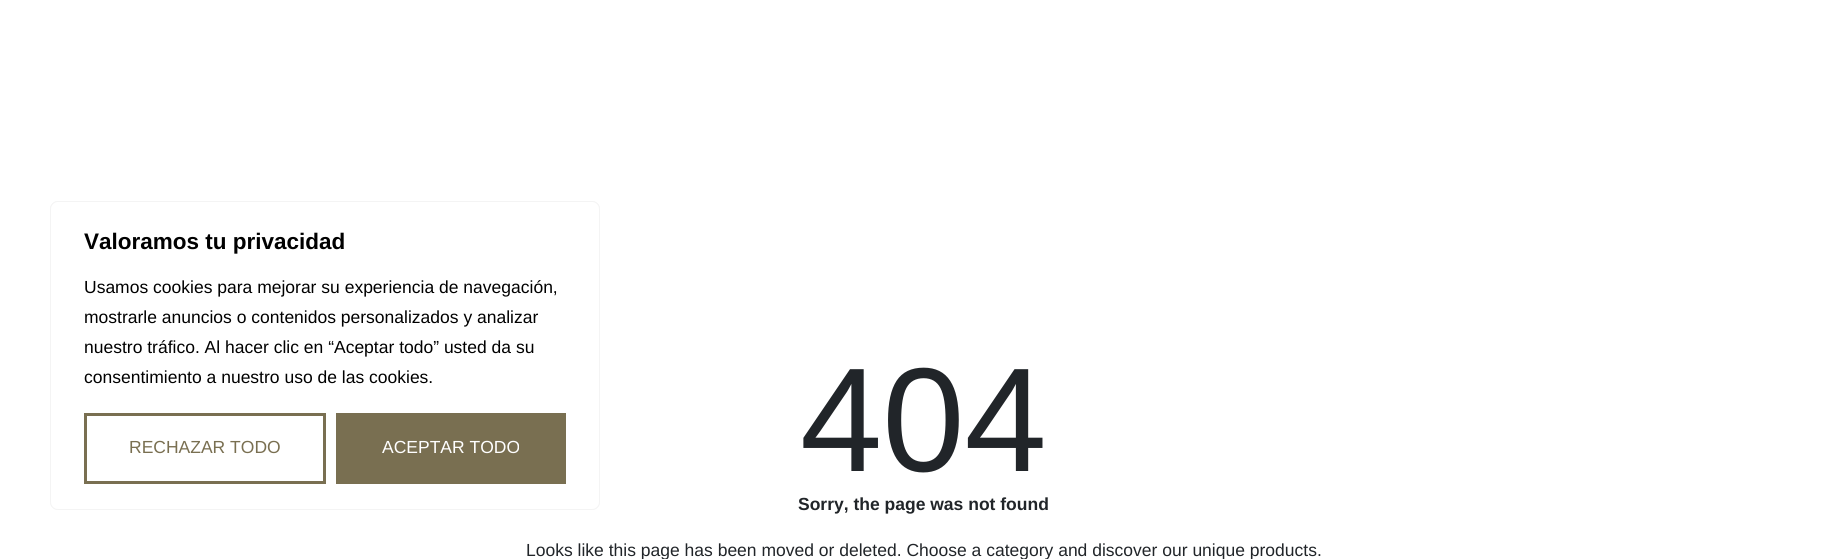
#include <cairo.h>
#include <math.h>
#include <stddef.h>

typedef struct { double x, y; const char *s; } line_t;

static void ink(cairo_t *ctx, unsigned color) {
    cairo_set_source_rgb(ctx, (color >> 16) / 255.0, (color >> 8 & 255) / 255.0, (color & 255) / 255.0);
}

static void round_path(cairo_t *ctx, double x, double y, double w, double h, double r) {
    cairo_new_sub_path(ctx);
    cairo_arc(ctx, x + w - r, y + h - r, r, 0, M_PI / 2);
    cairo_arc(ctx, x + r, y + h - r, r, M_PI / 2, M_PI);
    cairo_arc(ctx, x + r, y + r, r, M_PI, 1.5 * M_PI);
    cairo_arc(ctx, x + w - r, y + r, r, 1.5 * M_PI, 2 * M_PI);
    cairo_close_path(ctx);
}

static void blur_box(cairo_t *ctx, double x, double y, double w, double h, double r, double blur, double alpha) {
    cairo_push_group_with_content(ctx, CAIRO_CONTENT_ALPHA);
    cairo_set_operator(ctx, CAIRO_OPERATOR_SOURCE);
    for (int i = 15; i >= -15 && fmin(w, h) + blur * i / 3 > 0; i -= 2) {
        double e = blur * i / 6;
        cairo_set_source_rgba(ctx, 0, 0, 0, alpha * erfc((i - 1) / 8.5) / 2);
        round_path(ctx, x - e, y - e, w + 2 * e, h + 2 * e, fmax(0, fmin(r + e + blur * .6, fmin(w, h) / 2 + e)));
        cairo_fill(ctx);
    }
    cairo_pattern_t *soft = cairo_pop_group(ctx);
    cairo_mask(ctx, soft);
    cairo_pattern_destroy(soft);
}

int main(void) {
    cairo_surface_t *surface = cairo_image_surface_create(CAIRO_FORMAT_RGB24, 1847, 559);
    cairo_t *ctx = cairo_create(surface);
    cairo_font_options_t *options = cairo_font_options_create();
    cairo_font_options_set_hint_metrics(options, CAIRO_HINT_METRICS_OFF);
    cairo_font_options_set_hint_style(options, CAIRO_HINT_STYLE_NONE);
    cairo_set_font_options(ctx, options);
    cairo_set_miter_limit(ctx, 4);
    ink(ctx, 0xFFFFFF);
    cairo_paint(ctx);
    cairo_save(ctx);
    round_path(ctx, 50, 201, 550, 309, 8);
    cairo_clip(ctx);
    ink(ctx, 0xACABAB);
    blur_box(ctx, 50, 200, 550, 309, 8, 6, 0.3);
    cairo_restore(ctx);
    ink(ctx, 0xFFFFFF);
    round_path(ctx, 50.5, 201.5, 549, 308, 7.5);
    cairo_fill_preserve(ctx);
    ink(ctx, 0xF4F4F4);
    cairo_set_line_width(ctx, 1);
    cairo_stroke(ctx);
    cairo_select_font_face(ctx, "Liberation Sans", CAIRO_FONT_SLANT_NORMAL, CAIRO_FONT_WEIGHT_BOLD);
    cairo_set_font_size(ctx, 22.5);
    ink(ctx, 0x000000);
    cairo_move_to(ctx, 84, 249);
    cairo_show_text(ctx, "Valoramos tu privacidad");
    cairo_select_font_face(ctx, "Liberation Sans", CAIRO_FONT_SLANT_NORMAL, CAIRO_FONT_WEIGHT_NORMAL);
    cairo_set_font_size(ctx, 17.5);
    {
        static const line_t items[] = {
            {84, 293, "Usamos cookies para mejorar su experiencia de navegación,"},
            {84, 323, "mostrarle anuncios o contenidos personalizados y analizar"},
            {84, 353, "nuestro tráfico. Al hacer clic en “Aceptar todo” usted da su"},
            {84, 383, "consentimiento a nuestro uso de las cookies."},
        };
        for (size_t i = 0; i < sizeof items / sizeof *items; i++) {
            cairo_move_to(ctx, items[i].x, items[i].y);
            cairo_show_text(ctx, items[i].s);
        }
    }
    cairo_rectangle(ctx, 85.5, 414.5, 239, 68);
    ink(ctx, 0x796F51);
    cairo_set_line_width(ctx, 3);
    cairo_stroke(ctx);
    cairo_move_to(ctx, 129, 453);
    cairo_show_text(ctx, "RECHAZAR TODO");
    cairo_rectangle(ctx, 336, 413, 230, 71);
    cairo_fill(ctx);
    ink(ctx, 0xFFFFFF);
    cairo_move_to(ctx, 382, 453);
    cairo_show_text(ctx, "ACEPTAR TODO");
    cairo_set_font_size(ctx, 148);
    ink(ctx, 0x212529);
    cairo_move_to(ctx, 800, 471);
    cairo_show_text(ctx, "404");
    cairo_select_font_face(ctx, "Liberation Sans", CAIRO_FONT_SLANT_NORMAL, CAIRO_FONT_WEIGHT_BOLD);
    cairo_set_font_size(ctx, 17.5);
    cairo_move_to(ctx, 798, 510);
    cairo_show_text(ctx, "Sorry, the page was not found");
    cairo_select_font_face(ctx, "Liberation Sans", CAIRO_FONT_SLANT_NORMAL, CAIRO_FONT_WEIGHT_NORMAL);
    cairo_move_to(ctx, 526, 556);
    cairo_show_text(ctx, "Looks like this page has been moved or deleted. Choose a category and discover our unique products.");
    cairo_surface_write_to_png(surface, "image.png");
    cairo_font_options_destroy(options);
    cairo_destroy(ctx);
    cairo_surface_destroy(surface);
    return 0;
}
